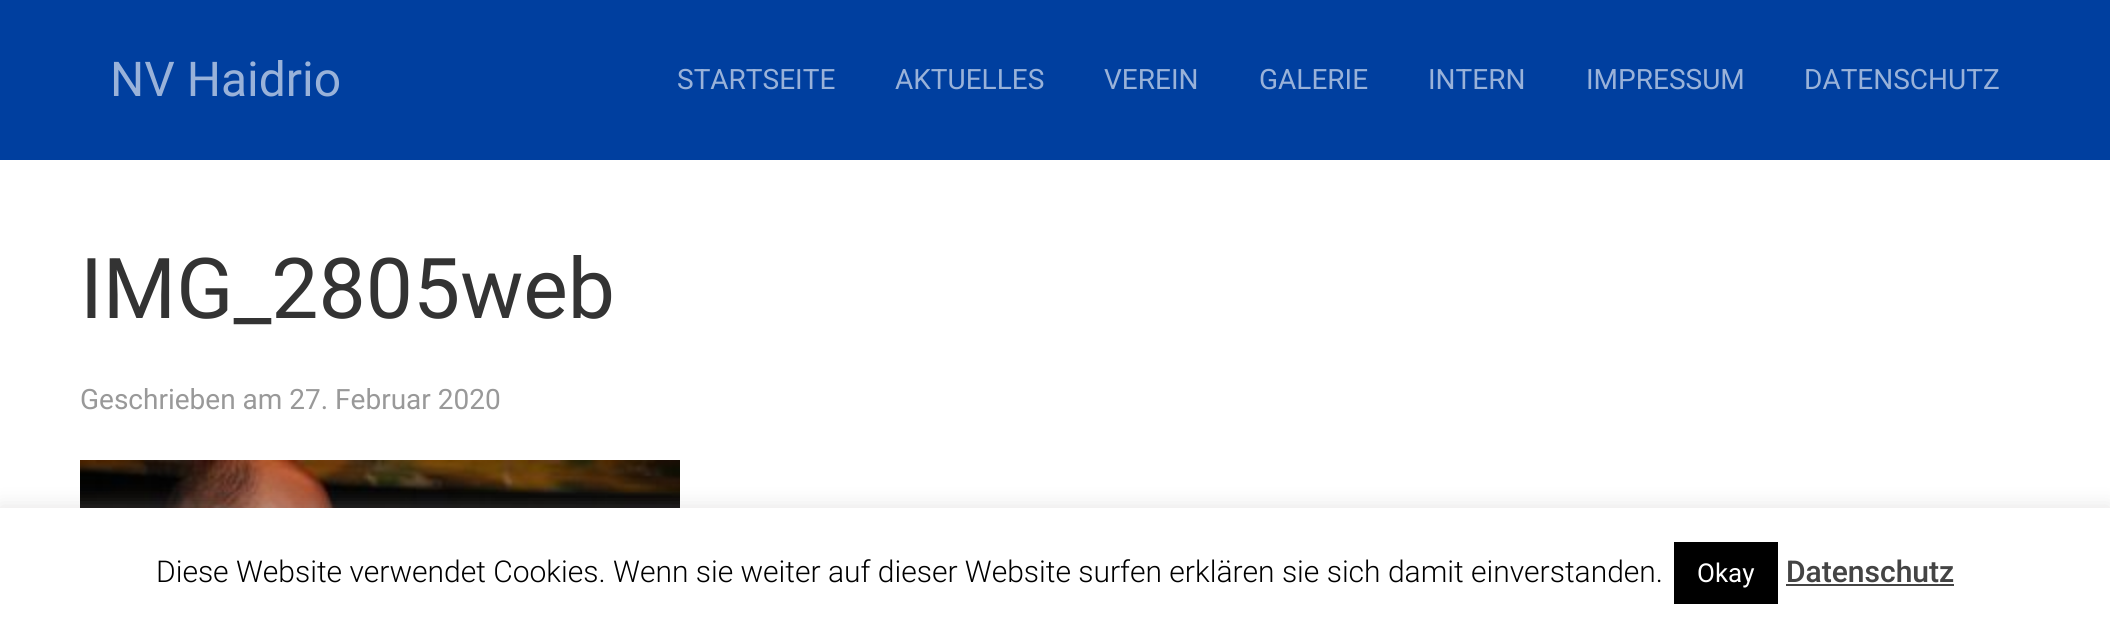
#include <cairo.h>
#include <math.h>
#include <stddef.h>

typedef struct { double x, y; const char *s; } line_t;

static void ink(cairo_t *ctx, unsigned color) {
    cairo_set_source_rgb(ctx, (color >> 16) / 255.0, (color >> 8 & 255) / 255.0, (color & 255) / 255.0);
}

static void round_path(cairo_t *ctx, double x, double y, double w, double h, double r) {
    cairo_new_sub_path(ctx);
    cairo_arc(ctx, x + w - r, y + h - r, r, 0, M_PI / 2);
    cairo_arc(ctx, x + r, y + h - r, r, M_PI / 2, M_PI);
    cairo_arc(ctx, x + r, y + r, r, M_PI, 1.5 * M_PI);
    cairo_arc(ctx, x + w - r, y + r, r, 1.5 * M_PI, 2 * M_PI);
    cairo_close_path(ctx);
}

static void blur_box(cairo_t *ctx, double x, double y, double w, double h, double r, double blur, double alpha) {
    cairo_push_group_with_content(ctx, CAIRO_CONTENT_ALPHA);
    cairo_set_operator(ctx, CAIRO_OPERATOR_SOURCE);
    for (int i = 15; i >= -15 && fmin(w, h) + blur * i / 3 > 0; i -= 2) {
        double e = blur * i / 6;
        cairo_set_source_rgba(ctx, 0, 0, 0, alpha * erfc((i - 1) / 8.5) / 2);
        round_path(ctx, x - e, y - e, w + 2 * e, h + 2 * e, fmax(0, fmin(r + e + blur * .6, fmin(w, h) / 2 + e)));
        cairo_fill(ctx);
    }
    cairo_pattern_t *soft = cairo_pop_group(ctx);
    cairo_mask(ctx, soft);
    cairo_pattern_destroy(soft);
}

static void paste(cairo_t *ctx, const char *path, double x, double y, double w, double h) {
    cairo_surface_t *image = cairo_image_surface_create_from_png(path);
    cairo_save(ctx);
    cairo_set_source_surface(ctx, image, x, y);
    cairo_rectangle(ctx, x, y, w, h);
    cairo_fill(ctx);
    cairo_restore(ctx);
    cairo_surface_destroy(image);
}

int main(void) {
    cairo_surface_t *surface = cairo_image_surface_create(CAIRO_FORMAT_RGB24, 2110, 628);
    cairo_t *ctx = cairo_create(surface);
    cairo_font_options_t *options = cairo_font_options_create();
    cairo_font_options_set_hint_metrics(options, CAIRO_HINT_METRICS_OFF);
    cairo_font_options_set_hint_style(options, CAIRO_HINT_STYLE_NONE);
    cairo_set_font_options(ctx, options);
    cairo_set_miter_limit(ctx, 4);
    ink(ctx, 0xFFFFFF);
    cairo_paint(ctx);
    ink(ctx, 0x003F9F);
    cairo_rectangle(ctx, 0, 0, 2110, 160);
    cairo_fill(ctx);
    cairo_select_font_face(ctx, "Roboto", CAIRO_FONT_SLANT_NORMAL, CAIRO_FONT_WEIGHT_NORMAL);
    cairo_set_font_size(ctx, 48);
    ink(ctx, 0x99B2D9);
    cairo_move_to(ctx, 110, 96);
    cairo_show_text(ctx, "NV Haidrio");
    cairo_set_font_size(ctx, 28);
    {
        static const line_t items[] = {
            {677, 89, "STARTSEITE"},
            {895, 89, "AKTUELLES"},
            {1104, 89, "VEREIN"},
            {1259, 89, "GALERIE"},
            {1428, 89, "INTERN"},
            {1586, 89, "IMPRESSUM"},
            {1804, 89, "DATENSCHUTZ"},
        };
        for (size_t i = 0; i < sizeof items / sizeof *items; i++) {
            cairo_move_to(ctx, items[i].x, items[i].y);
            cairo_show_text(ctx, items[i].s);
        }
    }
    cairo_set_font_size(ctx, 84);
    ink(ctx, 0x333333);
    cairo_move_to(ctx, 80, 318);
    cairo_show_text(ctx, "IMG_2805web");
    cairo_set_font_size(ctx, 28);
    ink(ctx, 0x999999);
    cairo_move_to(ctx, 80, 409);
    cairo_show_text(ctx, "Geschrieben am 27. Februar 2020");
    paste(ctx, "media/1.png", 80, 460, 600, 48);
    ink(ctx, 0xACABAB);
    blur_box(ctx, 0, 506, 2110, 120, 0, 10, 0.3);
    ink(ctx, 0xFFFFFF);
    cairo_rectangle(ctx, 0, 508, 2110, 120);
    cairo_fill(ctx);
    cairo_select_font_face(ctx, "Roboto Light", CAIRO_FONT_SLANT_NORMAL, CAIRO_FONT_WEIGHT_NORMAL);
    cairo_set_font_size(ctx, 30);
    ink(ctx, 0x000000);
    cairo_move_to(ctx, 156, 582);
    cairo_show_text(ctx, "Diese Website verwendet Cookies. Wenn sie weiter auf dieser Website surfen erklären sie sich damit einverstanden.");
    cairo_rectangle(ctx, 1674, 542, 104, 62);
    cairo_fill(ctx);
    cairo_select_font_face(ctx, "Roboto", CAIRO_FONT_SLANT_NORMAL, CAIRO_FONT_WEIGHT_NORMAL);
    cairo_set_font_size(ctx, 26);
    ink(ctx, 0xFFFFFF);
    cairo_move_to(ctx, 1697, 582);
    cairo_show_text(ctx, "Okay");
    cairo_select_font_face(ctx, "Roboto Medium", CAIRO_FONT_SLANT_NORMAL, CAIRO_FONT_WEIGHT_NORMAL);
    cairo_set_font_size(ctx, 30);
    ink(ctx, 0x444444);
    cairo_move_to(ctx, 1786, 582);
    cairo_show_text(ctx, "Datenschutz");
    cairo_rectangle(ctx, 1786, 584, 168, 2);
    cairo_fill(ctx);
    cairo_surface_write_to_png(surface, "image.png");
    cairo_font_options_destroy(options);
    cairo_destroy(ctx);
    cairo_surface_destroy(surface);
    return 0;
}
